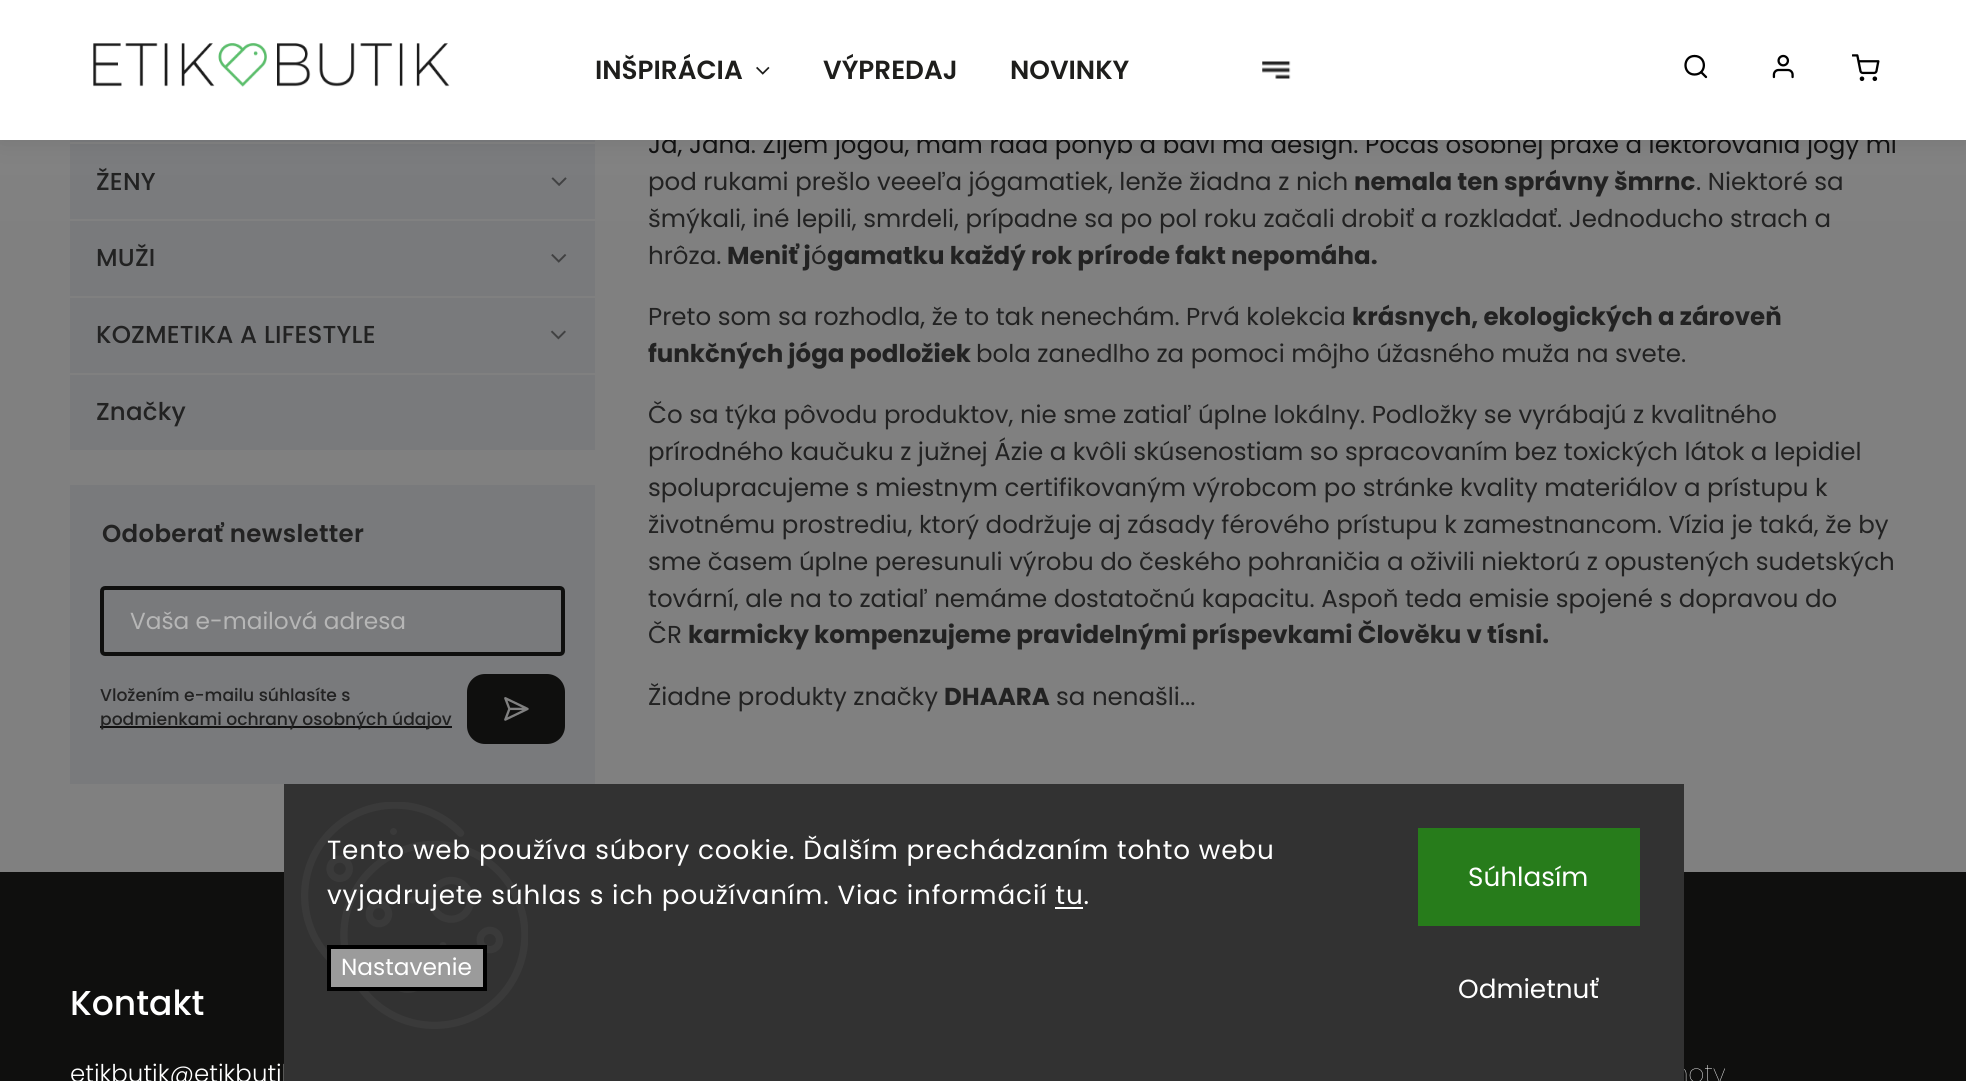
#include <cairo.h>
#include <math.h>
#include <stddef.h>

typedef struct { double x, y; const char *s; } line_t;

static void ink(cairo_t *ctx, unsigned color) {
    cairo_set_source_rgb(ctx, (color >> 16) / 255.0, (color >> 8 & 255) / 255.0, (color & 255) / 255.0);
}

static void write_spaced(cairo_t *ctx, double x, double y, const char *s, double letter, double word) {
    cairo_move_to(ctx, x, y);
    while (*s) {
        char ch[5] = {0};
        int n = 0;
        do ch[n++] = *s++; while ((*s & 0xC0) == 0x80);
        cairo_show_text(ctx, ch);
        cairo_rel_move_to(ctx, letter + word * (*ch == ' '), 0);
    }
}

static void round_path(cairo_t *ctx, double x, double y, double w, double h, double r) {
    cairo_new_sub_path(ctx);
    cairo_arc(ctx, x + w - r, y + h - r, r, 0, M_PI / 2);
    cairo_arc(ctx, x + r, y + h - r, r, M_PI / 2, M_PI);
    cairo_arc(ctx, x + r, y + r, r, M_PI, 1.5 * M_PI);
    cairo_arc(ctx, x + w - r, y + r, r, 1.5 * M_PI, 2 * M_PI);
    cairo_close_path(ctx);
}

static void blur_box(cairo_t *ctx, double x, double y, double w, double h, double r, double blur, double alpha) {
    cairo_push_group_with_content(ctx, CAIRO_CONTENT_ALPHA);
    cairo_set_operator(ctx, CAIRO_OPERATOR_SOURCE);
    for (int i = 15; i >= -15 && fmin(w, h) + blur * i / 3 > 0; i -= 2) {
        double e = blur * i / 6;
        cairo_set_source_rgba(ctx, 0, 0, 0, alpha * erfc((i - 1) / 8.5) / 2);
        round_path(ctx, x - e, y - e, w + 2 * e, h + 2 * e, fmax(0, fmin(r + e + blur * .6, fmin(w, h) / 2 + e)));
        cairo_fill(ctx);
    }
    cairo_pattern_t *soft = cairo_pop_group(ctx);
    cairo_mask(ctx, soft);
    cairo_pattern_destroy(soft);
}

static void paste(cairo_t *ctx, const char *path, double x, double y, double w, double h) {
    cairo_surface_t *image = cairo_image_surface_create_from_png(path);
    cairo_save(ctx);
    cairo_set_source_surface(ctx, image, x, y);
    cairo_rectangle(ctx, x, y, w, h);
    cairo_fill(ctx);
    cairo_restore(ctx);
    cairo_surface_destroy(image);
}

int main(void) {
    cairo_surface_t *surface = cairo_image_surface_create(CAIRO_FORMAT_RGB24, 1966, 1081);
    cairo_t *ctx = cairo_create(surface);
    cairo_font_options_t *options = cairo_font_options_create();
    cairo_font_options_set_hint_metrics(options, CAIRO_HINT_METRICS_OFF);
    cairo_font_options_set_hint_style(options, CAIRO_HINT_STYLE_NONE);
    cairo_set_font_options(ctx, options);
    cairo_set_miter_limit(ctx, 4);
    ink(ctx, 0xFFFFFF);
    cairo_paint(ctx);
    ink(ctx, 0xF1F3F7);
    cairo_rectangle(ctx, 70, 140, 525, 310);
    cairo_fill(ctx);
    ink(ctx, 0xFFFFFF);
    cairo_rectangle(ctx, 70, 142, 525, 2);
    cairo_fill(ctx);
    paste(ctx, "media/6.png", 551, 177, 16, 9);
    ink(ctx, 0x000000);
    blur_box(ctx, 0, 0, 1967, 140, 0, 13, 0.1);
    cairo_select_font_face(ctx, "Poppins", CAIRO_FONT_SLANT_NORMAL, CAIRO_FONT_WEIGHT_NORMAL);
    cairo_set_font_size(ctx, 24.5);
    ink(ctx, 0x222222);
    cairo_move_to(ctx, 648, 153);
    cairo_show_text(ctx, "Já, Jana. Žijem jógou, mám rada pohyb a baví ma design. Počas osobnej praxe a lektorovania jógy mi");
    ink(ctx, 0xFFFFFF);
    cairo_rectangle(ctx, 70, 219, 525, 2);
    cairo_fill(ctx);
    paste(ctx, "media/7.png", 551, 254, 16, 9);
    cairo_rectangle(ctx, 70, 296, 525, 2);
    cairo_fill(ctx);
    paste(ctx, "media/8.png", 550, 330, 16, 10);
    cairo_rectangle(ctx, 70, 373, 525, 2);
    cairo_fill(ctx);
    ink(ctx, 0xF1F3F7);
    cairo_rectangle(ctx, 70, 485, 525, 299);
    cairo_fill(ctx);
    round_path(ctx, 102, 588, 461, 66, 3);
    ink(ctx, 0x1E1E1C);
    cairo_set_line_width(ctx, 4);
    cairo_stroke(ctx);
    ink(ctx, 0x222222);
    cairo_rectangle(ctx, 100, 726, 352, 2);
    cairo_fill(ctx);
    ink(ctx, 0x1E1E1C);
    round_path(ctx, 467, 674, 98, 70, 18);
    cairo_fill(ctx);
    paste(ctx, "media/9.png", 504, 697, 25, 24);
    cairo_rectangle(ctx, 0, 872, 1966, 209);
    cairo_fill(ctx);
    ink(ctx, 0x000000);
    blur_box(ctx, -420, -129, 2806, 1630, 0, 140, 0.5);
    ink(ctx, 0xFFFFFF);
    cairo_rectangle(ctx, 0, 0, 1966, 140);
    cairo_fill(ctx);
    paste(ctx, "media/1.png", 93, 43, 357, 44);
    cairo_new_path(ctx);
    cairo_move_to(ctx, 1694.5, 74.5);
    cairo_curve_to(ctx, 1707, 74.5, 1707, 56, 1694.5, 56);
    cairo_curve_to(ctx, 1682.5, 56, 1682.5, 74.5, 1694.5, 74.5);
    cairo_close_path(ctx);
    cairo_move_to(ctx, 1706, 77);
    cairo_line_to(ctx, 1701, 72);
    ink(ctx, 0x000000);
    cairo_set_line_width(ctx, 2.3);
    cairo_set_line_cap(ctx, CAIRO_LINE_CAP_ROUND);
    cairo_set_line_join(ctx, CAIRO_LINE_JOIN_ROUND);
    cairo_stroke(ctx);
    paste(ctx, "media/2.png", 1772, 54, 22, 25);
    paste(ctx, "media/3.png", 1852, 54, 28, 28);
    cairo_select_font_face(ctx, "Poppins SemiBold", CAIRO_FONT_SLANT_NORMAL, CAIRO_FONT_WEIGHT_NORMAL);
    cairo_set_font_size(ctx, 26.25);
    ink(ctx, 0x1E1E1C);
    cairo_move_to(ctx, 595, 79);
    cairo_show_text(ctx, "INŠPIRÁCIA");
    paste(ctx, "media/4.png", 756, 66, 14, 9);
    cairo_move_to(ctx, 823, 79);
    cairo_show_text(ctx, "VÝPREDAJ");
    cairo_move_to(ctx, 1010, 79);
    cairo_show_text(ctx, "NOVINKY");
    paste(ctx, "media/5.png", 1262, 61, 29, 18);
    cairo_select_font_face(ctx, "Poppins Medium", CAIRO_FONT_SLANT_NORMAL, CAIRO_FONT_WEIGHT_NORMAL);
    cairo_set_font_size(ctx, 24.5);
    ink(ctx, 0x222222);
    {
        static const line_t items[] = {
            {96, 190, "ŽENY"},
            {96, 266, "MUŽI"},
            {96, 343, "KOZMETIKA A LIFESTYLE"},
            {96, 420, "Značky"},
        };
        for (size_t i = 0; i < sizeof items / sizeof *items; i++) {
            write_spaced(ctx, items[i].x, items[i].y, items[i].s, 0.2, 0);
        }
    }
    cairo_select_font_face(ctx, "Poppins SemiBold", CAIRO_FONT_SLANT_NORMAL, CAIRO_FONT_WEIGHT_NORMAL);
    write_spaced(ctx, 102, 542, "Odoberať newsletter", 0.3, 0);
    cairo_select_font_face(ctx, "Poppins", CAIRO_FONT_SLANT_NORMAL, CAIRO_FONT_WEIGHT_NORMAL);
    cairo_set_font_size(ctx, 23.25);
    ink(ctx, 0xB6B6B6);
    cairo_move_to(ctx, 130, 629);
    cairo_show_text(ctx, "Vaša e-mailová adresa");
    cairo_select_font_face(ctx, "Poppins Medium", CAIRO_FONT_SLANT_NORMAL, CAIRO_FONT_WEIGHT_NORMAL);
    cairo_set_font_size(ctx, 17.15);
    ink(ctx, 0x222222);
    cairo_move_to(ctx, 100, 701);
    cairo_show_text(ctx, "Vložením e-mailu súhlasíte s");
    cairo_move_to(ctx, 100, 725);
    cairo_show_text(ctx, "podmienkami ochrany osobných údajov");
    cairo_select_font_face(ctx, "Poppins", CAIRO_FONT_SLANT_NORMAL, CAIRO_FONT_WEIGHT_NORMAL);
    cairo_set_font_size(ctx, 24.5);
    cairo_move_to(ctx, 648, 190);
    cairo_show_text(ctx, "pod rukami prešlo veeeľa jógamatiek, lenže žiadna z nich");
    cairo_select_font_face(ctx, "Poppins", CAIRO_FONT_SLANT_NORMAL, CAIRO_FONT_WEIGHT_BOLD);
    cairo_move_to(ctx, 1354, 190);
    cairo_show_text(ctx, "nemala ten správny šmrnc");
    cairo_select_font_face(ctx, "Poppins", CAIRO_FONT_SLANT_NORMAL, CAIRO_FONT_WEIGHT_NORMAL);
    {
        static const line_t items[] = {
            {1696, 190, ". Niektoré sa"},
            {648, 227, "šmýkali, iné lepili, smrdeli, prípadne sa po pol roku začali drobiť a rozkladať. Jednoducho strach a"},
            {648, 264, "hrôza."},
        };
        for (size_t i = 0; i < sizeof items / sizeof *items; i++) {
            cairo_move_to(ctx, items[i].x, items[i].y);
            cairo_show_text(ctx, items[i].s);
        }
    }
    cairo_select_font_face(ctx, "Poppins", CAIRO_FONT_SLANT_NORMAL, CAIRO_FONT_WEIGHT_BOLD);
    cairo_move_to(ctx, 727, 264);
    cairo_show_text(ctx, "Meniť j");
    cairo_select_font_face(ctx, "Poppins", CAIRO_FONT_SLANT_NORMAL, CAIRO_FONT_WEIGHT_NORMAL);
    cairo_move_to(ctx, 811, 264);
    cairo_show_text(ctx, "ó");
    cairo_select_font_face(ctx, "Poppins", CAIRO_FONT_SLANT_NORMAL, CAIRO_FONT_WEIGHT_BOLD);
    cairo_move_to(ctx, 827, 264);
    cairo_show_text(ctx, "gamatku každý rok prírode fakt nepomáha.");
    cairo_select_font_face(ctx, "Poppins", CAIRO_FONT_SLANT_NORMAL, CAIRO_FONT_WEIGHT_NORMAL);
    cairo_move_to(ctx, 648, 325);
    cairo_show_text(ctx, "Preto som sa rozhodla, že to tak nenechám. Prvá kolekcia");
    cairo_select_font_face(ctx, "Poppins", CAIRO_FONT_SLANT_NORMAL, CAIRO_FONT_WEIGHT_BOLD);
    cairo_move_to(ctx, 1352, 325);
    cairo_show_text(ctx, "krásnych, ekologických a zároveň");
    cairo_move_to(ctx, 648, 362);
    cairo_show_text(ctx, "funkčných jóga podložiek");
    cairo_select_font_face(ctx, "Poppins", CAIRO_FONT_SLANT_NORMAL, CAIRO_FONT_WEIGHT_NORMAL);
    {
        static const line_t items[] = {
            {976, 362, "bola zanedlho za pomoci môjho úžasného muža na svete."},
            {648, 423, "Čo sa týka pôvodu produktov, nie sme zatiaľ úplne lokálny. Podložky se vyrábajú z kvalitného"},
            {648, 460, "prírodného kaučuku z južnej Ázie a kvôli skúsenostiam so spracovaním bez toxických látok a lepidiel"},
            {648, 496, "spolupracujeme s miestnym certifikovaným výrobcom po stránke kvality materiálov a prístupu k"},
            {648, 533, "životnému prostrediu, ktorý dodržuje aj zásady férového prístupu k zamestnancom. Vízia je taká, že by"},
            {648, 570, "sme časem úplne peresunuli výrobu do českého pohraničia a oživili niektorú z opustených sudetských"},
            {648, 607, "tovární, ale na to zatiaľ nemáme dostatočnú kapacitu. Aspoň teda emisie spojené s dopravou do"},
            {648, 643, "ČR"},
        };
        for (size_t i = 0; i < sizeof items / sizeof *items; i++) {
            cairo_move_to(ctx, items[i].x, items[i].y);
            cairo_show_text(ctx, items[i].s);
        }
    }
    cairo_select_font_face(ctx, "Poppins", CAIRO_FONT_SLANT_NORMAL, CAIRO_FONT_WEIGHT_BOLD);
    cairo_move_to(ctx, 688, 643);
    cairo_show_text(ctx, "karmicky kompenzujeme pravidelnými príspevkami Člověku v tísni.");
    cairo_select_font_face(ctx, "Poppins", CAIRO_FONT_SLANT_NORMAL, CAIRO_FONT_WEIGHT_NORMAL);
    cairo_move_to(ctx, 648, 705);
    cairo_show_text(ctx, "Žiadne produkty značky");
    cairo_select_font_face(ctx, "Poppins", CAIRO_FONT_SLANT_NORMAL, CAIRO_FONT_WEIGHT_BOLD);
    cairo_move_to(ctx, 944, 705);
    cairo_show_text(ctx, "DHAARA");
    cairo_select_font_face(ctx, "Poppins", CAIRO_FONT_SLANT_NORMAL, CAIRO_FONT_WEIGHT_NORMAL);
    cairo_move_to(ctx, 1056, 705);
    cairo_show_text(ctx, "sa nenašli...");
    cairo_select_font_face(ctx, "Poppins Medium", CAIRO_FONT_SLANT_NORMAL, CAIRO_FONT_WEIGHT_NORMAL);
    cairo_set_font_size(ctx, 34.5);
    ink(ctx, 0xFFFFFF);
    cairo_move_to(ctx, 70, 1015);
    cairo_show_text(ctx, "Kontakt");
    cairo_select_font_face(ctx, "Poppins Light", CAIRO_FONT_SLANT_NORMAL, CAIRO_FONT_WEIGHT_NORMAL);
    cairo_set_font_size(ctx, 24.5);
    cairo_move_to(ctx, 70, 1082);
    cairo_show_text(ctx, "etikbutik@etikbutik");
    cairo_select_font_face(ctx, "Poppins Thin", CAIRO_FONT_SLANT_NORMAL, CAIRO_FONT_WEIGHT_NORMAL);
    cairo_set_font_size(ctx, 25);
    cairo_move_to(ctx, 1673, 1082);
    cairo_show_text(ctx, "hoty");
    ink(ctx, 0x323232);
    cairo_rectangle(ctx, 284, 784, 1400, 297);
    cairo_fill(ctx);
    paste(ctx, "media/10.png", 301, 802, 227, 227);
    cairo_select_font_face(ctx, "Poppins", CAIRO_FONT_SLANT_NORMAL, CAIRO_FONT_WEIGHT_NORMAL);
    cairo_set_font_size(ctx, 26.25);
    ink(ctx, 0xFFFFFF);
    write_spaced(ctx, 327, 859, "Tento web používa súbory cookie. Ďalším prechádzaním tohto webu", 0.88, 0);
    write_spaced(ctx, 327, 904, "vyjadrujete súhlas s ich používaním. Viac informácií tu.", 0.88, 0);
    cairo_rectangle(ctx, 1055, 907, 28, 2);
    cairo_fill(ctx);
    ink(ctx, 0x9B9B9B);
    cairo_rectangle(ctx, 329, 947, 156, 42);
    cairo_fill_preserve(ctx);
    ink(ctx, 0x000000);
    cairo_set_line_width(ctx, 4);
    cairo_set_line_cap(ctx, CAIRO_LINE_CAP_BUTT);
    cairo_set_line_join(ctx, CAIRO_LINE_JOIN_MITER);
    cairo_stroke(ctx);
    cairo_set_font_size(ctx, 23.25);
    ink(ctx, 0xFFFFFF);
    cairo_move_to(ctx, 341, 975);
    cairo_show_text(ctx, "Nastavenie");
    ink(ctx, 0x277C1B);
    cairo_rectangle(ctx, 1418, 828, 222, 98);
    cairo_fill(ctx);
    cairo_set_font_size(ctx, 26.25);
    ink(ctx, 0xFFFFFF);
    cairo_move_to(ctx, 1468, 886);
    cairo_show_text(ctx, "Súhlasím");
    cairo_move_to(ctx, 1458, 998);
    cairo_show_text(ctx, "Odmietnuť");
    cairo_surface_write_to_png(surface, "image.png");
    cairo_font_options_destroy(options);
    cairo_destroy(ctx);
    cairo_surface_destroy(surface);
    return 0;
}
